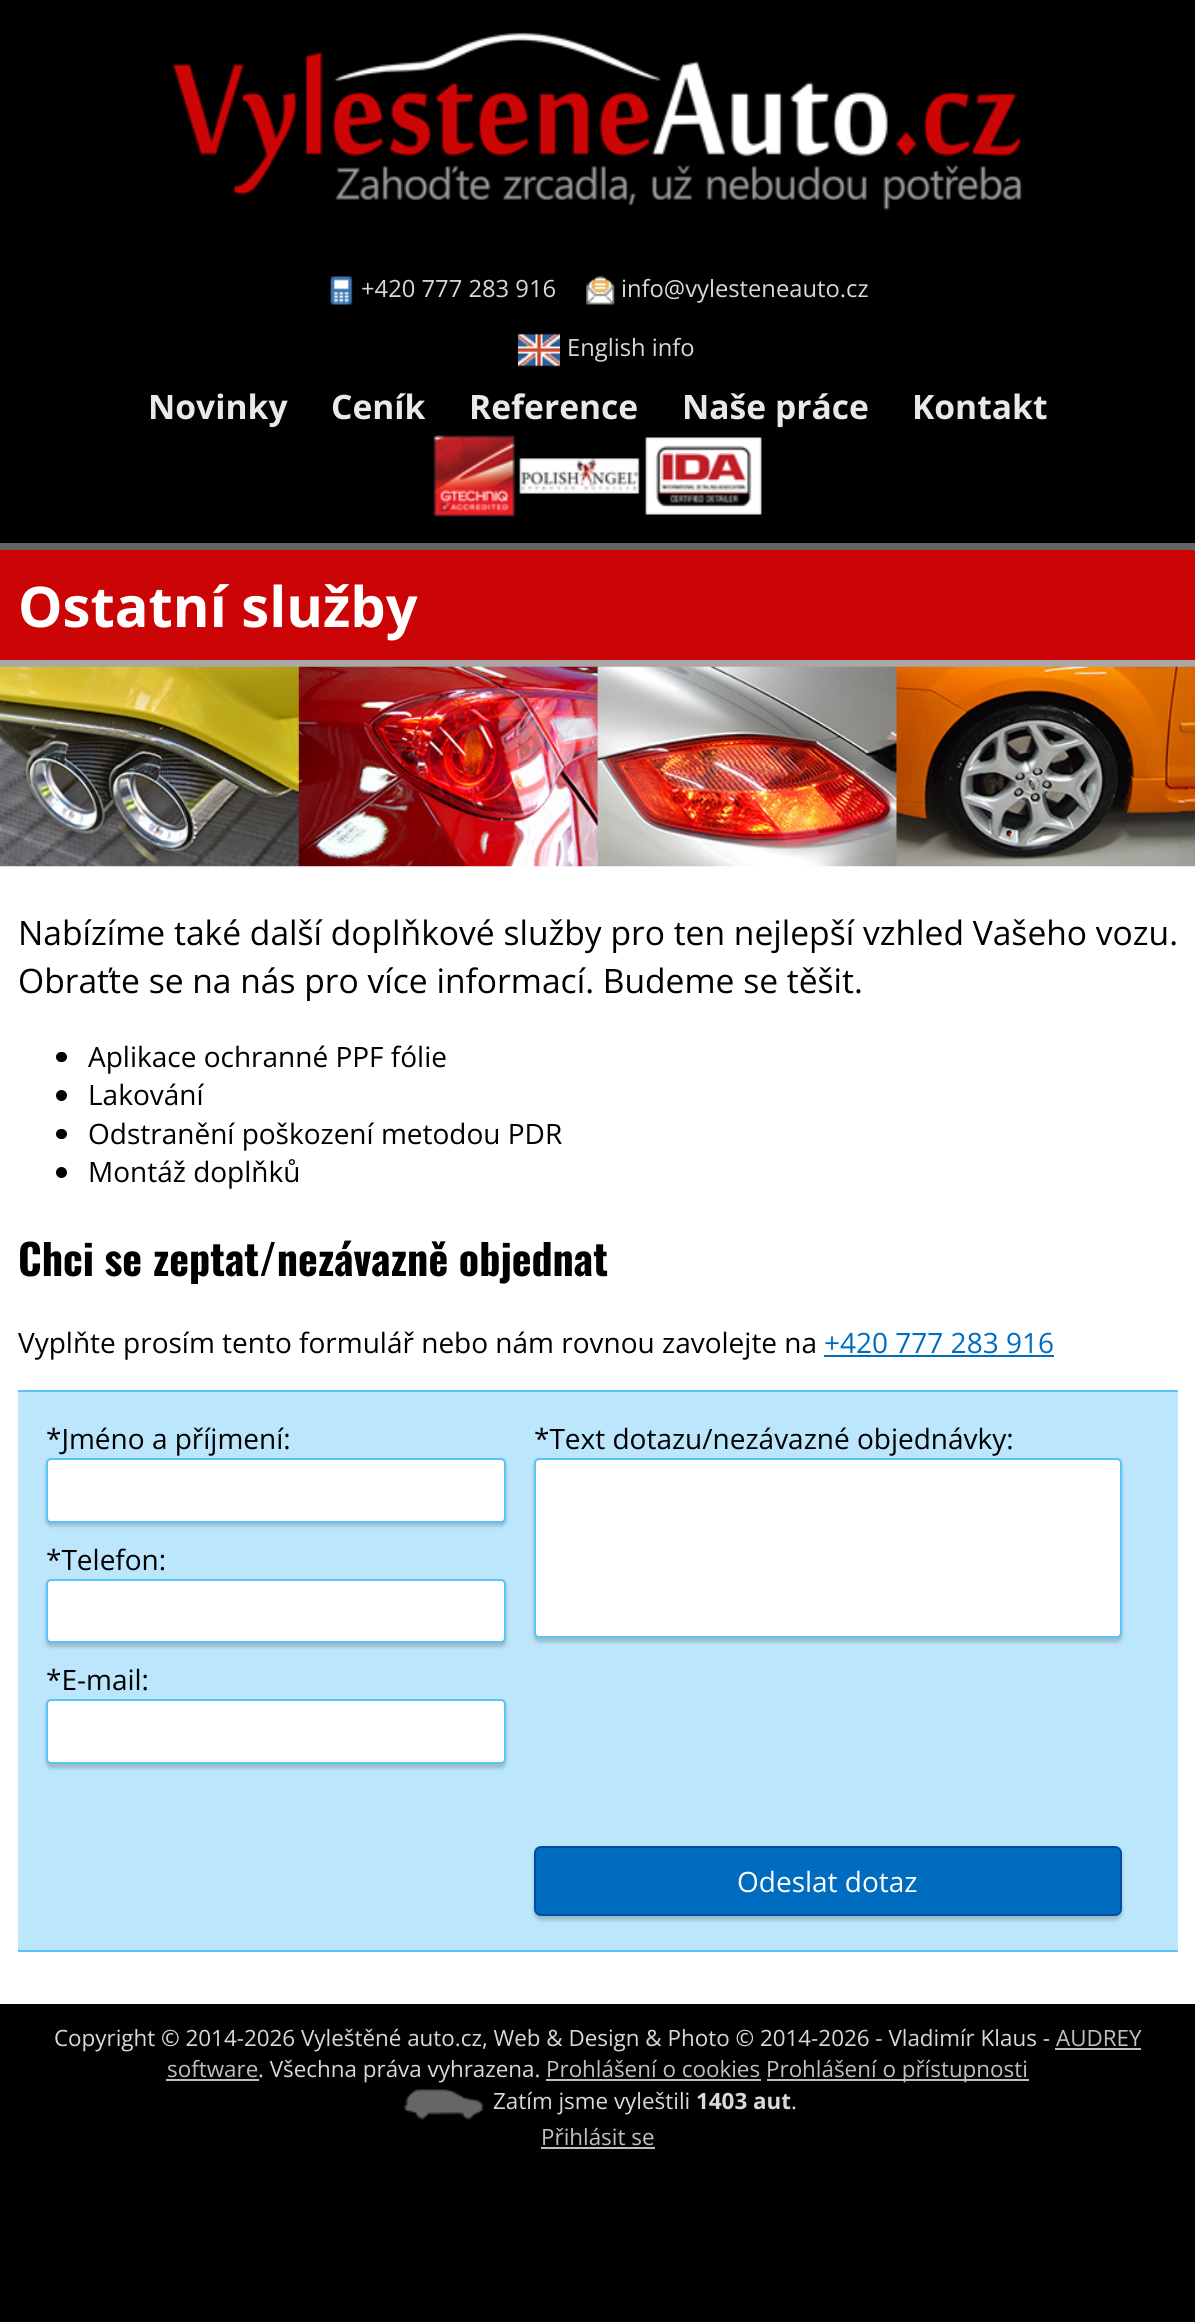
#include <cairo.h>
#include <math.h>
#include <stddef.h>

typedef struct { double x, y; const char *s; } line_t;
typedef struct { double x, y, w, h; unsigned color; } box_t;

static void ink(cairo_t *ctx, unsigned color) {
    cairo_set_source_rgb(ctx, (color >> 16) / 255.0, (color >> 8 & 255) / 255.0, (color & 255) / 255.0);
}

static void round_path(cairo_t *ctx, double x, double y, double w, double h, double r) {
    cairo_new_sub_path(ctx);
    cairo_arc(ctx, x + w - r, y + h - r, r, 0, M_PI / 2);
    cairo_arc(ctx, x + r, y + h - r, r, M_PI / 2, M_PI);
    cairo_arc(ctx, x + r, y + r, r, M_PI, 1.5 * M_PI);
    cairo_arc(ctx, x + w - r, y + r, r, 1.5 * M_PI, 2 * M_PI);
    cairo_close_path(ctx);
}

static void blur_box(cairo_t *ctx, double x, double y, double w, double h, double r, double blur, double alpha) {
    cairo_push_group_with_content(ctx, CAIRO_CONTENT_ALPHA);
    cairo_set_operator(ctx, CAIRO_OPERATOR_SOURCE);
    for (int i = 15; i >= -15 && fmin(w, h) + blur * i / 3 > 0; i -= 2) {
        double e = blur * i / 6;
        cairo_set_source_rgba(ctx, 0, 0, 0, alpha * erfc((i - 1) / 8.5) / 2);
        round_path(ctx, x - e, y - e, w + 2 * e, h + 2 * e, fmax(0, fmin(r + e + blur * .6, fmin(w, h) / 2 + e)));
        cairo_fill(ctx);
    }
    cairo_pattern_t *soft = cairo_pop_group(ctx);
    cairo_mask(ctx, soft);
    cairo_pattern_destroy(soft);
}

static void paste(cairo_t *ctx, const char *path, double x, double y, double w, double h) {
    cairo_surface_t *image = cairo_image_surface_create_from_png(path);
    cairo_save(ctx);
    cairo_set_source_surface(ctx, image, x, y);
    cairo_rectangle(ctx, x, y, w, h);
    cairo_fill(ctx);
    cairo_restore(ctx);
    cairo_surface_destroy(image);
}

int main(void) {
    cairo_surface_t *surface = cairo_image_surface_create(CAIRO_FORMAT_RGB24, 1195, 2322);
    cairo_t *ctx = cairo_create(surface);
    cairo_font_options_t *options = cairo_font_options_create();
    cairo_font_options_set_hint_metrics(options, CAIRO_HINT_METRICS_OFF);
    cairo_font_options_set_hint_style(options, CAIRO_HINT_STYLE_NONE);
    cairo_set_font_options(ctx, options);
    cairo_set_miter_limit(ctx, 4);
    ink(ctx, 0x000000);
    cairo_paint(ctx);
    ink(ctx, 0x646464);
    cairo_rectangle(ctx, 0, 543, 1195, 7);
    cairo_fill(ctx);
    paste(ctx, "media/1.png", 172, 32, 851, 179);
    paste(ctx, "media/2.png", 330, 276, 23, 29);
    cairo_select_font_face(ctx, "Open Sans", CAIRO_FONT_SLANT_NORMAL, CAIRO_FONT_WEIGHT_NORMAL);
    cairo_set_font_size(ctx, 23.75);
    ink(ctx, 0xD9D9D9);
    cairo_move_to(ctx, 361, 297);
    cairo_show_text(ctx, "+420 777 283 916");
    paste(ctx, "media/3.png", 586, 276, 29, 29);
    cairo_move_to(ctx, 621, 297);
    cairo_show_text(ctx, "info@vylesteneauto.cz");
    paste(ctx, "media/4.png", 518, 333, 42, 34);
    cairo_move_to(ctx, 567, 356);
    cairo_show_text(ctx, "English info");
    cairo_select_font_face(ctx, "Open Sans", CAIRO_FONT_SLANT_NORMAL, CAIRO_FONT_WEIGHT_BOLD);
    cairo_set_font_size(ctx, 33.6);
    ink(ctx, 0xE9E9E9);
    {
        static const line_t items[] = {
            {148, 419, "Novinky"},
            {331, 419, "Ceník"},
            {469, 419, "Reference"},
            {682, 419, "Naše práce"},
            {912, 419, "Kontakt"},
        };
        for (size_t i = 0; i < sizeof items / sizeof *items; i++) {
            cairo_move_to(ctx, items[i].x, items[i].y);
            cairo_show_text(ctx, items[i].s);
        }
    }
    paste(ctx, "media/5.png", 433, 435, 329, 82);
    {
        static const box_t items[] = {
            {0, 866, 1195, 1138, 0xFFFFFF},
            {0, 550, 1195, 110, 0xCB0505},
            {0, 660, 1195, 7, 0xA8A8A8},
        };
        for (size_t i = 0; i < sizeof items / sizeof *items; i++) {
            ink(ctx, items[i].color);
            cairo_rectangle(ctx, items[i].x, items[i].y, items[i].w, items[i].h);
            cairo_fill(ctx);
        }
    }
    cairo_set_font_size(ctx, 56);
    ink(ctx, 0xFFFFFF);
    cairo_move_to(ctx, 18, 627);
    cairo_show_text(ctx, "Ostatní služby");
    paste(ctx, "media/6.png", 0, 666, 1195, 201);
    cairo_select_font_face(ctx, "Open Sans", CAIRO_FONT_SLANT_NORMAL, CAIRO_FONT_WEIGHT_NORMAL);
    cairo_set_font_size(ctx, 33.6);
    ink(ctx, 0x000000);
    cairo_move_to(ctx, 18, 945);
    cairo_show_text(ctx, "Nabízíme také další doplňkové služby pro ten nejlepší vzhled Vašeho vozu.");
    cairo_move_to(ctx, 18, 993);
    cairo_show_text(ctx, "Obraťte se na nás pro více informací. Budeme se těšit.");
    round_path(ctx, 56, 1052, 11, 10, 5);
    cairo_fill(ctx);
    cairo_set_font_size(ctx, 28);
    cairo_move_to(ctx, 88, 1067);
    cairo_show_text(ctx, "Aplikace ochranné PPF fólie");
    cairo_new_path(ctx);
    cairo_arc(ctx, 61.5, 1095.5, 5.5, 0, 2 * M_PI);
    cairo_fill(ctx);
    cairo_move_to(ctx, 88, 1105);
    cairo_show_text(ctx, "Lakování");
    round_path(ctx, 56, 1129, 11, 10, 5);
    cairo_fill(ctx);
    cairo_move_to(ctx, 88, 1144);
    cairo_show_text(ctx, "Odstranění poškození metodou PDR");
    cairo_new_path(ctx);
    cairo_arc(ctx, 61.5, 1172.5, 5.5, 0, 2 * M_PI);
    cairo_fill(ctx);
    cairo_move_to(ctx, 88, 1182);
    cairo_show_text(ctx, "Montáž doplňků");
    cairo_select_font_face(ctx, "Oswald", CAIRO_FONT_SLANT_NORMAL, CAIRO_FONT_WEIGHT_BOLD);
    cairo_set_font_size(ctx, 42);
    cairo_move_to(ctx, 18, 1276);
    cairo_show_text(ctx, "Chci se zeptat/nezávazně objednat");
    cairo_select_font_face(ctx, "Open Sans", CAIRO_FONT_SLANT_NORMAL, CAIRO_FONT_WEIGHT_NORMAL);
    cairo_set_font_size(ctx, 28);
    cairo_move_to(ctx, 18, 1353);
    cairo_show_text(ctx, "Vyplňte prosím tento formulář nebo nám rovnou zavolejte na");
    ink(ctx, 0x006CBF);
    cairo_move_to(ctx, 824, 1353);
    cairo_show_text(ctx, "+420 777 283 916");
    {
        static const box_t items[] = {
            {824, 1355, 230, 2, 0x006CBF},
            {18, 1392, 1160, 558, 0xBBE6FC},
            {18, 1390, 1160, 2, 0x59C2F8},
            {18, 1950, 1160, 2, 0x59C2F8},
        };
        for (size_t i = 0; i < sizeof items / sizeof *items; i++) {
            ink(ctx, items[i].color);
            cairo_rectangle(ctx, items[i].x, items[i].y, items[i].w, items[i].h);
            cairo_fill(ctx);
        }
    }
    ink(ctx, 0x000000);
    cairo_move_to(ctx, 46, 1449);
    cairo_show_text(ctx, "*Jméno a příjmení:");
    ink(ctx, 0x000000);
    blur_box(ctx, 46, 1461, 460, 65, 5, 2, 0.2);
    ink(ctx, 0xFFFFFF);
    round_path(ctx, 47, 1459, 458, 63, 4);
    cairo_fill_preserve(ctx);
    ink(ctx, 0x59C2F8);
    cairo_stroke(ctx);
    ink(ctx, 0x000000);
    cairo_move_to(ctx, 46, 1570);
    cairo_show_text(ctx, "*Telefon:");
    ink(ctx, 0x000000);
    blur_box(ctx, 46, 1582, 460, 65, 5, 2, 0.2);
    ink(ctx, 0xFFFFFF);
    round_path(ctx, 47, 1580, 458, 62, 4);
    cairo_fill_preserve(ctx);
    ink(ctx, 0x59C2F8);
    cairo_stroke(ctx);
    ink(ctx, 0x000000);
    cairo_move_to(ctx, 46, 1690);
    cairo_show_text(ctx, "*E-mail:");
    ink(ctx, 0x000000);
    blur_box(ctx, 46, 1703, 460, 65, 5, 2, 0.2);
    ink(ctx, 0xFFFFFF);
    round_path(ctx, 47, 1700, 458, 63, 4);
    cairo_fill_preserve(ctx);
    ink(ctx, 0x59C2F8);
    cairo_stroke(ctx);
    ink(ctx, 0x000000);
    cairo_move_to(ctx, 534, 1449);
    cairo_show_text(ctx, "*Text dotazu/nezávazné objednávky:");
    ink(ctx, 0x000000);
    blur_box(ctx, 534, 1461, 588, 181, 5, 2, 0.2);
    ink(ctx, 0xFFFFFF);
    round_path(ctx, 535, 1459, 586, 178, 4);
    cairo_fill_preserve(ctx);
    ink(ctx, 0x59C2F8);
    cairo_stroke(ctx);
    ink(ctx, 0x000000);
    blur_box(ctx, 534, 1850, 588, 70, 7, 2, 0.2);
    ink(ctx, 0x006CBF);
    round_path(ctx, 535, 1847, 586, 68, 6);
    cairo_fill_preserve(ctx);
    ink(ctx, 0x004EA1);
    cairo_stroke(ctx);
    ink(ctx, 0xFFFFFF);
    cairo_move_to(ctx, 737, 1892);
    cairo_show_text(ctx, "Odeslat dotaz");
    cairo_set_font_size(ctx, 22.4);
    ink(ctx, 0xD9D9D9);
    cairo_move_to(ctx, 54, 2046);
    cairo_show_text(ctx, "Copyright © 2014-2026 Vyleštěné auto.cz, Web & Design & Photo © 2014-2026 - Vladimír Klaus -");
    ink(ctx, 0xC0C0C0);
    cairo_move_to(ctx, 1056, 2046);
    cairo_show_text(ctx, "AUDREY");
    cairo_rectangle(ctx, 1055, 2048, 86, 2);
    cairo_fill(ctx);
    cairo_move_to(ctx, 167, 2077);
    cairo_show_text(ctx, "software");
    cairo_rectangle(ctx, 166, 2079, 93, 2);
    cairo_fill(ctx);
    ink(ctx, 0xD9D9D9);
    cairo_move_to(ctx, 258, 2077);
    cairo_show_text(ctx, ". Všechna práva vyhrazena.");
    ink(ctx, 0xC0C0C0);
    cairo_move_to(ctx, 546, 2077);
    cairo_show_text(ctx, "Prohlášení o cookies");
    cairo_rectangle(ctx, 546, 2079, 215, 2);
    cairo_fill(ctx);
    cairo_rectangle(ctx, 767, 2079, 262, 2);
    cairo_fill(ctx);
    cairo_move_to(ctx, 766, 2077);
    cairo_show_text(ctx, "Prohlášení o přístupnosti");
    paste(ctx, "media/7.png", 404, 2089, 80, 31);
    ink(ctx, 0xD9D9D9);
    cairo_move_to(ctx, 493, 2109);
    cairo_show_text(ctx, "Zatím jsme vyleštili");
    cairo_select_font_face(ctx, "Open Sans", CAIRO_FONT_SLANT_NORMAL, CAIRO_FONT_WEIGHT_BOLD);
    cairo_move_to(ctx, 696, 2109);
    cairo_show_text(ctx, "1403 aut");
    cairo_select_font_face(ctx, "Open Sans", CAIRO_FONT_SLANT_NORMAL, CAIRO_FONT_WEIGHT_NORMAL);
    cairo_move_to(ctx, 791, 2109);
    cairo_show_text(ctx, ".");
    ink(ctx, 0xC0C0C0);
    cairo_move_to(ctx, 541, 2145);
    cairo_show_text(ctx, "Přihlásit se");
    cairo_rectangle(ctx, 541, 2147, 114, 2);
    cairo_fill(ctx);
    cairo_surface_write_to_png(surface, "image.png");
    cairo_font_options_destroy(options);
    cairo_destroy(ctx);
    cairo_surface_destroy(surface);
    return 0;
}
